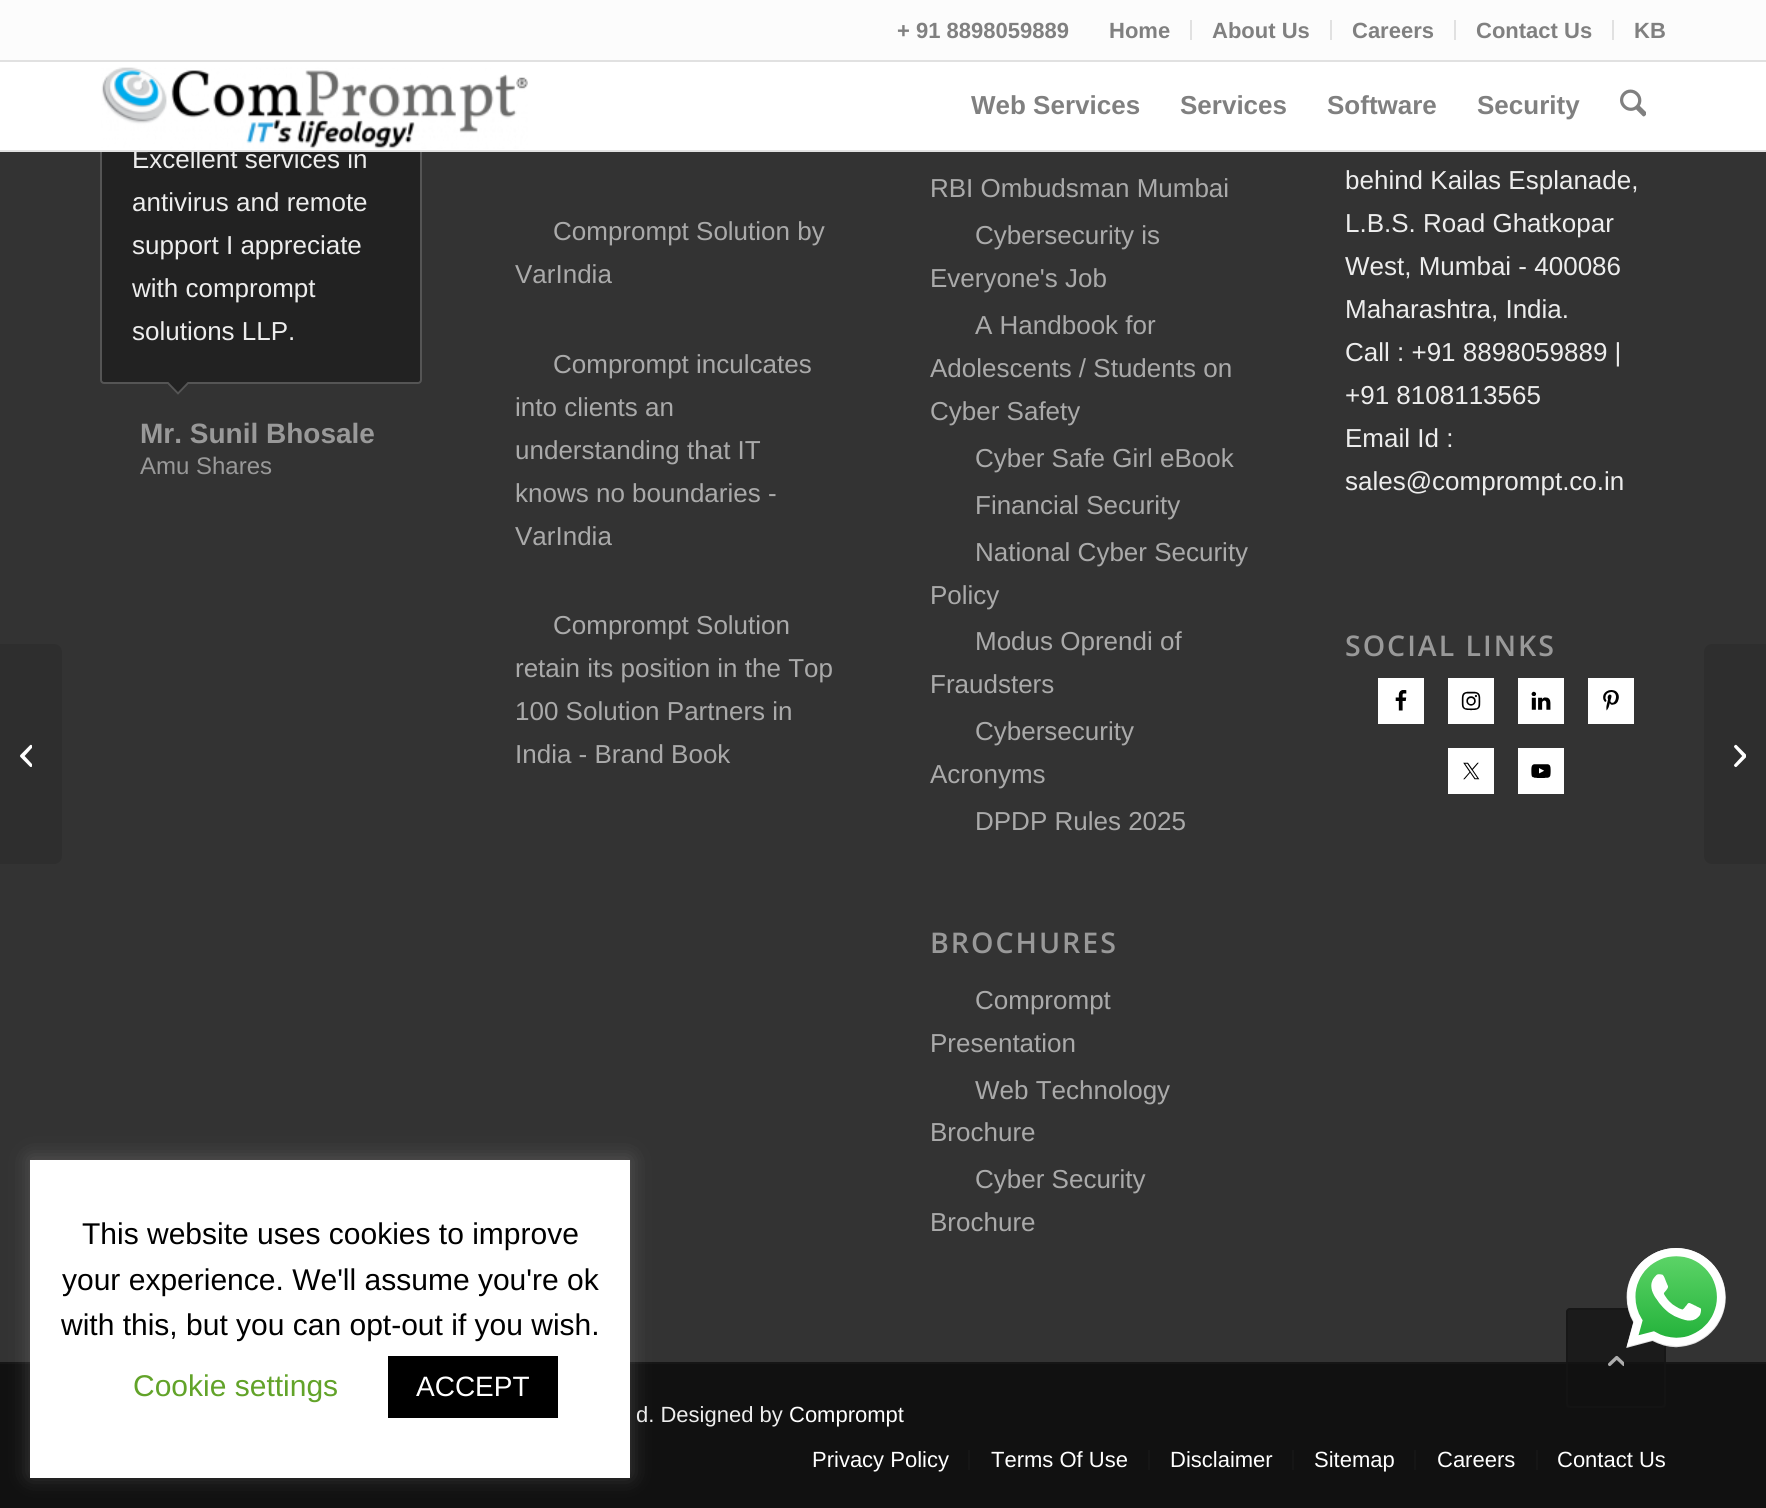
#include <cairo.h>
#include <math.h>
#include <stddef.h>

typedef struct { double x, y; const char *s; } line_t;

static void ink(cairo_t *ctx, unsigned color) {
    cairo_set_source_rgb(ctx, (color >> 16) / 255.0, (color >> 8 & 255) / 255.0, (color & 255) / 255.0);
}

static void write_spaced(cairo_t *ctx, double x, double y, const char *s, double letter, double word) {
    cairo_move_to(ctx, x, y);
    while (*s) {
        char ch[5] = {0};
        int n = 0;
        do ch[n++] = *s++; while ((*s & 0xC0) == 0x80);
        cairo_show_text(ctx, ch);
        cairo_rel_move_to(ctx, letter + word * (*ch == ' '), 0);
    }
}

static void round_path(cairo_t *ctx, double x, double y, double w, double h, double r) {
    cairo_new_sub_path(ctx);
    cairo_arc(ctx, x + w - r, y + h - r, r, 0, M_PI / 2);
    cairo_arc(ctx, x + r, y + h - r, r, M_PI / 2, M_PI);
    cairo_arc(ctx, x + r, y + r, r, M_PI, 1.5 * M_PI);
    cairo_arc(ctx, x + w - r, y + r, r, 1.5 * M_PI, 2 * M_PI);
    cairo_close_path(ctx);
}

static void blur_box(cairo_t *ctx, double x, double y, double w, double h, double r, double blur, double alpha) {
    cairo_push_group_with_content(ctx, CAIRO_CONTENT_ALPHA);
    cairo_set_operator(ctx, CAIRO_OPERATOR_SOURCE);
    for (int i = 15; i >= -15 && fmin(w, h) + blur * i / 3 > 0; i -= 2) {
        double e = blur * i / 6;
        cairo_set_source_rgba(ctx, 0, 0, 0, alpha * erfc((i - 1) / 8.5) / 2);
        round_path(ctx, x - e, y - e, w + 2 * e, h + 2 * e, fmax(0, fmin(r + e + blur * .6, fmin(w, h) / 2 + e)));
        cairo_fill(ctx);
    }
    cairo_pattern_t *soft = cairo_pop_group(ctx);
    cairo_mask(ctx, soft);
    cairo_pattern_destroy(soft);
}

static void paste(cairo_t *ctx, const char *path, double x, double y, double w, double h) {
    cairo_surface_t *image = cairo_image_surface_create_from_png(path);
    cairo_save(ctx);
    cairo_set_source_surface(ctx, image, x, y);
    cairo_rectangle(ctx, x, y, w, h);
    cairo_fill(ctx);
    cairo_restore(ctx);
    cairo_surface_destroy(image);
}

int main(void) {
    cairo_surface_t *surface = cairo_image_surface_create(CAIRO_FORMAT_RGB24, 1766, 1508);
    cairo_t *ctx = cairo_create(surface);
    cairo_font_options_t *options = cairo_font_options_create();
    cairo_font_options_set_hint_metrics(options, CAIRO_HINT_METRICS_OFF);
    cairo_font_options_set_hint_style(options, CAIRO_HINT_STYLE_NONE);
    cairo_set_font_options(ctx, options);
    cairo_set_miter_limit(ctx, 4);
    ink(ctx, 0x333333);
    cairo_paint(ctx);
    ink(ctx, 0xFCFCFC);
    cairo_rectangle(ctx, 0, 0, 1766, 60);
    cairo_fill(ctx);
    ink(ctx, 0xE1E1E1);
    cairo_rectangle(ctx, 0, 60, 1766, 2);
    cairo_fill(ctx);
    cairo_select_font_face(ctx, "Liberation Sans", CAIRO_FONT_SLANT_NORMAL, CAIRO_FONT_WEIGHT_BOLD);
    cairo_set_font_size(ctx, 22);
    ink(ctx, 0x808080);
    cairo_move_to(ctx, 897, 38);
    cairo_show_text(ctx, "+ 91 8898059889");
    ink(ctx, 0xE1E1E1);
    cairo_rectangle(ctx, 1190, 20, 2, 20);
    cairo_fill(ctx);
    ink(ctx, 0x808080);
    cairo_move_to(ctx, 1109, 38);
    cairo_show_text(ctx, "Home");
    ink(ctx, 0xE1E1E1);
    cairo_rectangle(ctx, 1330, 20, 2, 20);
    cairo_fill(ctx);
    ink(ctx, 0x808080);
    cairo_move_to(ctx, 1212, 38);
    cairo_show_text(ctx, "About Us");
    ink(ctx, 0xE1E1E1);
    cairo_rectangle(ctx, 1454, 20, 2, 20);
    cairo_fill(ctx);
    ink(ctx, 0x808080);
    cairo_move_to(ctx, 1352, 38);
    cairo_show_text(ctx, "Careers");
    ink(ctx, 0xE1E1E1);
    cairo_rectangle(ctx, 1612, 20, 2, 20);
    cairo_fill(ctx);
    ink(ctx, 0x808080);
    cairo_move_to(ctx, 1476, 38);
    cairo_show_text(ctx, "Contact Us");
    cairo_move_to(ctx, 1634, 38);
    cairo_show_text(ctx, "KB");
    ink(ctx, 0x222222);
    round_path(ctx, 101, 107, 320, 276, 3);
    cairo_fill_preserve(ctx);
    ink(ctx, 0x555555);
    cairo_stroke(ctx);
    cairo_select_font_face(ctx, "Liberation Sans", CAIRO_FONT_SLANT_NORMAL, CAIRO_FONT_WEIGHT_NORMAL);
    cairo_set_font_size(ctx, 26);
    ink(ctx, 0xEDEDED);
    cairo_move_to(ctx, 132, 168);
    cairo_show_text(ctx, "Excellent services in");
    ink(ctx, 0xFFFFFF);
    cairo_rectangle(ctx, 0, 62, 1766, 88);
    cairo_fill(ctx);
    ink(ctx, 0xE1E1E1);
    cairo_rectangle(ctx, 0, 150, 1766, 2);
    cairo_fill(ctx);
    paste(ctx, "media/1.png", 101, 67, 427, 82);
    cairo_select_font_face(ctx, "Liberation Sans", CAIRO_FONT_SLANT_NORMAL, CAIRO_FONT_WEIGHT_BOLD);
    ink(ctx, 0x808080);
    {
        static const line_t items[] = {
            {971, 114, "Web Services"},
            {1180, 114, "Services"},
            {1327, 114, "Software"},
            {1477, 114, "Security"},
        };
        for (size_t i = 0; i < sizeof items / sizeof *items; i++) {
            cairo_move_to(ctx, items[i].x, items[i].y);
            cairo_show_text(ctx, items[i].s);
        }
    }
    paste(ctx, "media/2.png", 1620, 89, 26, 28);
    ink(ctx, 0x2E2E2E);
    cairo_new_path(ctx);
    cairo_move_to(ctx, 0, 644);
    cairo_line_to(ctx, 54, 644);
    cairo_curve_to(ctx, 58.5, 644, 62, 647.5, 62, 652);
    cairo_line_to(ctx, 62, 856);
    cairo_curve_to(ctx, 62, 860.5, 58.5, 864, 54, 864);
    cairo_line_to(ctx, 0, 864);
    cairo_close_path(ctx);
    cairo_fill(ctx);
    paste(ctx, "media/3.png", 20, 744, 12, 23);
    cairo_select_font_face(ctx, "Liberation Sans", CAIRO_FONT_SLANT_NORMAL, CAIRO_FONT_WEIGHT_NORMAL);
    ink(ctx, 0xEDEDED);
    {
        static const line_t items[] = {
            {132, 211, "antivirus and remote"},
            {132, 254, "support I appreciate"},
            {132, 297, "with comprompt"},
            {132, 340, "solutions LLP."},
        };
        for (size_t i = 0; i < sizeof items / sizeof *items; i++) {
            cairo_move_to(ctx, items[i].x, items[i].y);
            cairo_show_text(ctx, items[i].s);
        }
    }
    cairo_save(ctx);
    cairo_rectangle(ctx, 168, 382, 20, 20);
    cairo_clip(ctx);
    ink(ctx, 0x222222);
    cairo_new_path(ctx);
    cairo_move_to(ctx, 178, 366.5);
    cairo_line_to(ctx, 192, 380.5);
    cairo_line_to(ctx, 178, 395);
    cairo_line_to(ctx, 164, 380.5);
    cairo_close_path(ctx);
    cairo_fill(ctx);
    cairo_new_path(ctx);
    cairo_move_to(ctx, 178, 368);
    cairo_line_to(ctx, 190.5, 380.5);
    cairo_line_to(ctx, 178, 393.5);
    cairo_line_to(ctx, 165.5, 380.5);
    cairo_close_path(ctx);
    ink(ctx, 0x555555);
    cairo_stroke(ctx);
    cairo_restore(ctx);
    cairo_select_font_face(ctx, "Liberation Sans", CAIRO_FONT_SLANT_NORMAL, CAIRO_FONT_WEIGHT_BOLD);
    cairo_set_font_size(ctx, 28);
    ink(ctx, 0x999999);
    cairo_move_to(ctx, 140, 443);
    cairo_show_text(ctx, "Mr. Sunil Bhosale");
    cairo_select_font_face(ctx, "Liberation Sans", CAIRO_FONT_SLANT_NORMAL, CAIRO_FONT_WEIGHT_NORMAL);
    cairo_set_font_size(ctx, 24);
    cairo_move_to(ctx, 140, 474);
    cairo_show_text(ctx, "Amu Shares");
    cairo_set_font_size(ctx, 26);
    ink(ctx, 0xAAAAAA);
    {
        static const line_t items[] = {
            {553, 240, "Comprompt Solution by"},
            {515, 283, "VarIndia"},
            {553, 373, "Comprompt inculcates"},
            {515, 416, "into clients an"},
            {515, 459, "understanding that IT"},
            {515, 502, "knows no boundaries -"},
            {515, 545, "VarIndia"},
            {553, 634, "Comprompt Solution"},
            {515, 677, "retain its position in the Top"},
            {515, 720, "100 Solution Partners in"},
            {515, 763, "India - Brand Book"},
            {930, 197, "RBI Ombudsman Mumbai"},
            {975, 244, "Cybersecurity is"},
            {930, 287, "Everyone's Job"},
            {975, 334, "A Handbook for"},
            {930, 377, "Adolescents / Students on"},
            {930, 420, "Cyber Safety"},
            {975, 467, "Cyber Safe Girl eBook"},
            {975, 514, "Financial Security"},
            {975, 561, "National Cyber Security"},
            {930, 604, "Policy"},
            {975, 650, "Modus Oprendi of"},
            {930, 693, "Fraudsters"},
            {975, 740, "Cybersecurity"},
            {930, 783, "Acronyms"},
            {975, 830, "DPDP Rules 2025"},
        };
        for (size_t i = 0; i < sizeof items / sizeof *items; i++) {
            cairo_move_to(ctx, items[i].x, items[i].y);
            cairo_show_text(ctx, items[i].s);
        }
    }
    cairo_select_font_face(ctx, "Open Sans SemiBold", CAIRO_FONT_SLANT_NORMAL, CAIRO_FONT_WEIGHT_NORMAL);
    cairo_set_font_size(ctx, 28.5);
    ink(ctx, 0x999999);
    write_spaced(ctx, 930, 953, "BROCHURES", 2, 0);
    cairo_select_font_face(ctx, "Liberation Sans", CAIRO_FONT_SLANT_NORMAL, CAIRO_FONT_WEIGHT_NORMAL);
    cairo_set_font_size(ctx, 26);
    ink(ctx, 0xAAAAAA);
    {
        static const line_t items[] = {
            {975, 1009, "Comprompt"},
            {930, 1052, "Presentation"},
            {975, 1099, "Web Technology"},
            {930, 1141, "Brochure"},
            {975, 1188, "Cyber Security"},
            {930, 1231, "Brochure"},
        };
        for (size_t i = 0; i < sizeof items / sizeof *items; i++) {
            cairo_move_to(ctx, items[i].x, items[i].y);
            cairo_show_text(ctx, items[i].s);
        }
    }
    ink(ctx, 0xEDEDED);
    {
        static const line_t items[] = {
            {1345, 189, "behind Kailas Esplanade,"},
            {1345, 232, "L.B.S. Road Ghatkopar"},
            {1345, 275, "West, Mumbai - 400086"},
            {1345, 318, "Maharashtra, India."},
            {1345, 361, "Call : +91 8898059889 |"},
            {1345, 404, "+91 8108113565"},
            {1345, 447, "Email Id :"},
            {1345, 490, "sales@comprompt.co.in"},
        };
        for (size_t i = 0; i < sizeof items / sizeof *items; i++) {
            cairo_move_to(ctx, items[i].x, items[i].y);
            cairo_show_text(ctx, items[i].s);
        }
    }
    cairo_select_font_face(ctx, "Open Sans SemiBold", CAIRO_FONT_SLANT_NORMAL, CAIRO_FONT_WEIGHT_NORMAL);
    cairo_set_font_size(ctx, 28.5);
    ink(ctx, 0x999999);
    write_spaced(ctx, 1345, 656, "SOCIAL LINKS", 2, 0);
    ink(ctx, 0xFFFFFF);
    cairo_rectangle(ctx, 1378, 678, 46, 46);
    cairo_fill(ctx);
    paste(ctx, "media/4.png", 1395, 690, 12, 21);
    cairo_rectangle(ctx, 1448, 678, 46, 46);
    cairo_fill(ctx);
    paste(ctx, "media/5.png", 1461, 691, 20, 20);
    cairo_rectangle(ctx, 1518, 678, 46, 46);
    cairo_fill(ctx);
    paste(ctx, "media/6.png", 1531, 691, 20, 19);
    cairo_rectangle(ctx, 1588, 678, 46, 46);
    cairo_fill(ctx);
    paste(ctx, "media/7.png", 1603, 690, 16, 21);
    cairo_rectangle(ctx, 1448, 748, 46, 46);
    cairo_fill(ctx);
    paste(ctx, "media/8.png", 1463, 762, 17, 18);
    cairo_rectangle(ctx, 1518, 748, 46, 46);
    cairo_fill(ctx);
    paste(ctx, "media/9.png", 1531, 764, 20, 14);
    ink(ctx, 0x111111);
    cairo_rectangle(ctx, 0, 1364, 1766, 144);
    cairo_fill(ctx);
    ink(ctx, 0x161616);
    cairo_rectangle(ctx, 0, 1362, 1766, 2);
    cairo_fill(ctx);
    cairo_select_font_face(ctx, "Liberation Sans", CAIRO_FONT_SLANT_NORMAL, CAIRO_FONT_WEIGHT_NORMAL);
    cairo_set_font_size(ctx, 22);
    ink(ctx, 0xEDEDED);
    cairo_move_to(ctx, 636, 1422);
    cairo_show_text(ctx, "d. Designed by");
    ink(ctx, 0xFFFFFF);
    cairo_move_to(ctx, 789, 1422);
    cairo_show_text(ctx, "Comprompt");
    cairo_move_to(ctx, 812, 1467);
    cairo_show_text(ctx, "Privacy Policy");
    ink(ctx, 0x161616);
    cairo_rectangle(ctx, 968, 1450, 2, 20);
    cairo_fill(ctx);
    ink(ctx, 0xFFFFFF);
    cairo_move_to(ctx, 991, 1467);
    cairo_show_text(ctx, "Terms Of Use");
    ink(ctx, 0x161616);
    cairo_rectangle(ctx, 1148, 1450, 2, 20);
    cairo_fill(ctx);
    ink(ctx, 0xFFFFFF);
    cairo_move_to(ctx, 1170, 1467);
    cairo_show_text(ctx, "Disclaimer");
    ink(ctx, 0x161616);
    cairo_rectangle(ctx, 1292, 1450, 2, 20);
    cairo_fill(ctx);
    ink(ctx, 0xFFFFFF);
    cairo_move_to(ctx, 1314, 1467);
    cairo_show_text(ctx, "Sitemap");
    ink(ctx, 0x161616);
    cairo_rectangle(ctx, 1414, 1450, 2, 20);
    cairo_fill(ctx);
    ink(ctx, 0xFFFFFF);
    cairo_move_to(ctx, 1437, 1467);
    cairo_show_text(ctx, "Careers");
    ink(ctx, 0x161616);
    cairo_rectangle(ctx, 1536, 1450, 2, 20);
    cairo_fill(ctx);
    ink(ctx, 0xFFFFFF);
    cairo_move_to(ctx, 1557, 1467);
    cairo_show_text(ctx, "Contact Us");
    ink(ctx, 0x2E2E2E);
    cairo_new_path(ctx);
    cairo_move_to(ctx, 1712, 644);
    cairo_line_to(ctx, 1766, 644);
    cairo_line_to(ctx, 1766, 864);
    cairo_line_to(ctx, 1712, 864);
    cairo_curve_to(ctx, 1707.5, 864, 1704, 860.5, 1704, 856);
    cairo_line_to(ctx, 1704, 652);
    cairo_curve_to(ctx, 1704, 647.5, 1707.5, 644, 1712, 644);
    cairo_close_path(ctx);
    cairo_fill(ctx);
    paste(ctx, "media/10.png", 1734, 744, 12, 24);
    ink(ctx, 0xACABAB);
    blur_box(ctx, 30, 1158, 600, 318, 0, 10, 0.3);
    ink(ctx, 0xFFFFFF);
    cairo_rectangle(ctx, 30, 1160, 600, 318);
    cairo_fill(ctx);
    cairo_set_font_size(ctx, 30);
    ink(ctx, 0x000000);
    {
        static const line_t items[] = {
            {82, 1244, "This website uses cookies to improve"},
            {62, 1290, "your experience. We'll assume you're ok"},
            {61, 1335, "with this, but you can opt-out if you wish."},
        };
        for (size_t i = 0; i < sizeof items / sizeof *items; i++) {
            cairo_move_to(ctx, items[i].x, items[i].y);
            cairo_show_text(ctx, items[i].s);
        }
    }
    ink(ctx, 0x62A329);
    cairo_move_to(ctx, 133, 1396);
    cairo_show_text(ctx, "Cookie settings");
    ink(ctx, 0x000000);
    cairo_rectangle(ctx, 388, 1356, 170, 62);
    cairo_fill(ctx);
    cairo_set_font_size(ctx, 28);
    ink(ctx, 0xFFFFFF);
    cairo_move_to(ctx, 416, 1396);
    cairo_show_text(ctx, "ACCEPT");
    cairo_set_source_rgba(ctx, 0.067, 0.067, 0.067, 0.7);
    round_path(ctx, 1566, 1308, 100, 100, 4);
    cairo_fill(ctx);
    round_path(ctx, 1567, 1309, 98, 98, 3);
    cairo_set_source_rgba(ctx, 0.086, 0.086, 0.086, 0.7);
    cairo_stroke(ctx);
    paste(ctx, "media/11.png", 1626, 1248, 100, 100);
    paste(ctx, "media/12.png", 1608, 1355, 16, 12);
    cairo_surface_write_to_png(surface, "image.png");
    cairo_font_options_destroy(options);
    cairo_destroy(ctx);
    cairo_surface_destroy(surface);
    return 0;
}
